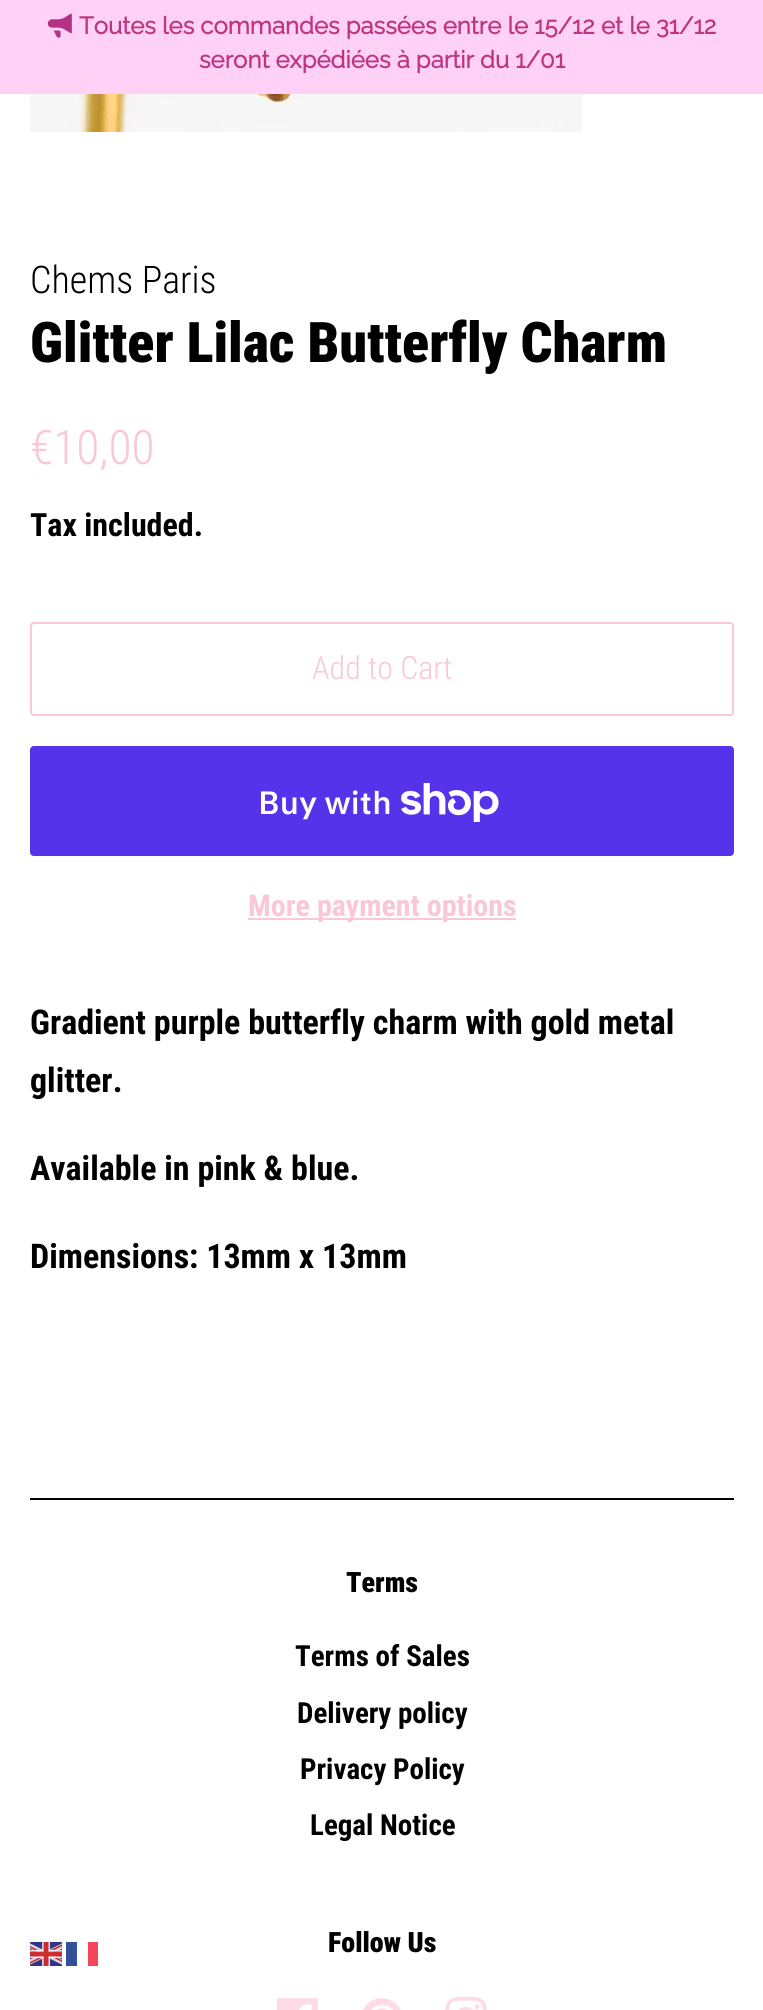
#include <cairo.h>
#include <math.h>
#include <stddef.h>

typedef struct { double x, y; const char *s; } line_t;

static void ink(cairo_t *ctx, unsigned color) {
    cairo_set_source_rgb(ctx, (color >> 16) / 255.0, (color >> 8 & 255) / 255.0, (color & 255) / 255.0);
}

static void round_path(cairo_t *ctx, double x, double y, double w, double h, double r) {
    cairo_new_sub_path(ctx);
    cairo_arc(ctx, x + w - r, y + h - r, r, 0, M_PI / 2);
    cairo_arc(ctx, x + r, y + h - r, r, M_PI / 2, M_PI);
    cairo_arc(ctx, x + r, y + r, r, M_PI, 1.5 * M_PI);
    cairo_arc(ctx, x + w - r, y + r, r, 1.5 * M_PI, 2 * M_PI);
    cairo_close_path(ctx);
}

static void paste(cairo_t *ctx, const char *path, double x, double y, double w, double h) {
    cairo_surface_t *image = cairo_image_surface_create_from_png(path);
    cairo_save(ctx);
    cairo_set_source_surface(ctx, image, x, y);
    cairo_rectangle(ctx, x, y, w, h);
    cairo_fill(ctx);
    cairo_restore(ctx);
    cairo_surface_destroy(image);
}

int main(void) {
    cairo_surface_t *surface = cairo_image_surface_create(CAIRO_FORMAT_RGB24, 763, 2010);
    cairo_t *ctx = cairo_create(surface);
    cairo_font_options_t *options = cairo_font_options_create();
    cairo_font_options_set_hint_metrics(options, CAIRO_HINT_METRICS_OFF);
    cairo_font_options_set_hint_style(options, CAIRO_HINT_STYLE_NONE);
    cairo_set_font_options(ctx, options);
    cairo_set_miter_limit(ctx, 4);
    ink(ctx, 0xFFFFFF);
    cairo_paint(ctx);
    ink(ctx, 0xFFD1F6);
    cairo_rectangle(ctx, 0, 0, 763, 94);
    cairo_fill(ctx);
    paste(ctx, "media/1.png", 47, 13, 25, 25);
    cairo_select_font_face(ctx, "Raleway", CAIRO_FONT_SLANT_NORMAL, CAIRO_FONT_WEIGHT_BOLD);
    cairo_set_font_size(ctx, 24);
    ink(ctx, 0xBE3580);
    cairo_move_to(ctx, 79, 34);
    cairo_show_text(ctx, "Toutes les commandes passées entre le 15/12 et le 31/12");
    cairo_move_to(ctx, 199, 68);
    cairo_show_text(ctx, "seront expédiées à partir du 1/01");
    paste(ctx, "media/2.png", 30, 94, 552, 38);
    cairo_select_font_face(ctx, "Roboto Condensed Light", CAIRO_FONT_SLANT_NORMAL, CAIRO_FONT_WEIGHT_NORMAL);
    cairo_set_font_size(ctx, 38);
    ink(ctx, 0x000000);
    cairo_move_to(ctx, 30, 293);
    cairo_show_text(ctx, "Chems Paris");
    cairo_select_font_face(ctx, "Roboto Condensed Black", CAIRO_FONT_SLANT_NORMAL, CAIRO_FONT_WEIGHT_NORMAL);
    cairo_set_font_size(ctx, 56);
    cairo_move_to(ctx, 30, 362);
    cairo_show_text(ctx, "Glitter Lilac Butterfly Charm");
    cairo_select_font_face(ctx, "Roboto Condensed Light", CAIRO_FONT_SLANT_NORMAL, CAIRO_FONT_WEIGHT_NORMAL);
    cairo_set_font_size(ctx, 47.5);
    ink(ctx, 0xFAC7D9);
    cairo_move_to(ctx, 30, 464);
    cairo_show_text(ctx, "€10,00");
    cairo_select_font_face(ctx, "Roboto Condensed", CAIRO_FONT_SLANT_NORMAL, CAIRO_FONT_WEIGHT_BOLD);
    cairo_set_font_size(ctx, 32);
    ink(ctx, 0x000000);
    cairo_move_to(ctx, 30, 536);
    cairo_show_text(ctx, "Tax included.");
    round_path(ctx, 31, 623, 702, 92, 3);
    ink(ctx, 0xFAC7D9);
    cairo_stroke(ctx);
    cairo_select_font_face(ctx, "Roboto Condensed Light", CAIRO_FONT_SLANT_NORMAL, CAIRO_FONT_WEIGHT_NORMAL);
    cairo_move_to(ctx, 312, 679);
    cairo_show_text(ctx, "Add to Cart");
    ink(ctx, 0x5433EB);
    round_path(ctx, 30, 746, 704, 110, 4);
    cairo_fill(ctx);
    cairo_select_font_face(ctx, "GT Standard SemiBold", CAIRO_FONT_SLANT_NORMAL, CAIRO_FONT_WEIGHT_NORMAL);
    ink(ctx, 0xFFFFFF);
    cairo_move_to(ctx, 258, 814);
    cairo_show_text(ctx, "Buy with");
    paste(ctx, "media/3.png", 401, 783, 98, 39);
    ink(ctx, 0xFAC7D9);
    cairo_rectangle(ctx, 248, 918, 268, 2);
    cairo_fill(ctx);
    cairo_select_font_face(ctx, "Roboto Condensed", CAIRO_FONT_SLANT_NORMAL, CAIRO_FONT_WEIGHT_BOLD);
    cairo_set_font_size(ctx, 30);
    cairo_move_to(ctx, 248, 916);
    cairo_show_text(ctx, "More payment options");
    cairo_set_font_size(ctx, 34);
    ink(ctx, 0x000000);
    {
        static const line_t items[] = {
            {30, 1034, "Gradient purple butterfly charm with gold metal"},
            {30, 1092, "glitter."},
            {30, 1180, "Available in pink & blue."},
            {30, 1268, "Dimensions: 13mm x 13mm"},
        };
        for (size_t i = 0; i < sizeof items / sizeof *items; i++) {
            cairo_move_to(ctx, items[i].x, items[i].y);
            cairo_show_text(ctx, items[i].s);
        }
    }
    cairo_rectangle(ctx, 30, 1498, 704, 2);
    cairo_fill(ctx);
    paste(ctx, "media/4.png", 30, 1942, 32, 24);
    ink(ctx, 0x335199);
    cairo_rectangle(ctx, 66, 1942, 11, 24);
    cairo_fill(ctx);
    ink(ctx, 0xF54659);
    cairo_rectangle(ctx, 88, 1942, 10, 24);
    cairo_fill(ctx);
    cairo_select_font_face(ctx, "Roboto Condensed Black", CAIRO_FONT_SLANT_NORMAL, CAIRO_FONT_WEIGHT_NORMAL);
    cairo_set_font_size(ctx, 28);
    ink(ctx, 0x000000);
    cairo_move_to(ctx, 346, 1592);
    cairo_show_text(ctx, "Terms");
    cairo_select_font_face(ctx, "Roboto Condensed", CAIRO_FONT_SLANT_NORMAL, CAIRO_FONT_WEIGHT_BOLD);
    cairo_set_font_size(ctx, 29);
    {
        static const line_t items[] = {
            {295, 1666, "Terms of Sales"},
            {297, 1723, "Delivery policy"},
            {300, 1779, "Privacy Policy"},
            {310, 1835, "Legal Notice"},
        };
        for (size_t i = 0; i < sizeof items / sizeof *items; i++) {
            cairo_move_to(ctx, items[i].x, items[i].y);
            cairo_show_text(ctx, items[i].s);
        }
    }
    cairo_select_font_face(ctx, "Roboto Condensed Black", CAIRO_FONT_SLANT_NORMAL, CAIRO_FONT_WEIGHT_NORMAL);
    cairo_set_font_size(ctx, 28);
    cairo_move_to(ctx, 328, 1952);
    cairo_show_text(ctx, "Follow Us");
    paste(ctx, "media/5.png", 276, 1998, 42, 12);
    paste(ctx, "media/6.png", 363, 1998, 38, 12);
    paste(ctx, "media/7.png", 445, 1997, 42, 13);
    cairo_surface_write_to_png(surface, "image.png");
    cairo_font_options_destroy(options);
    cairo_destroy(ctx);
    cairo_surface_destroy(surface);
    return 0;
}
